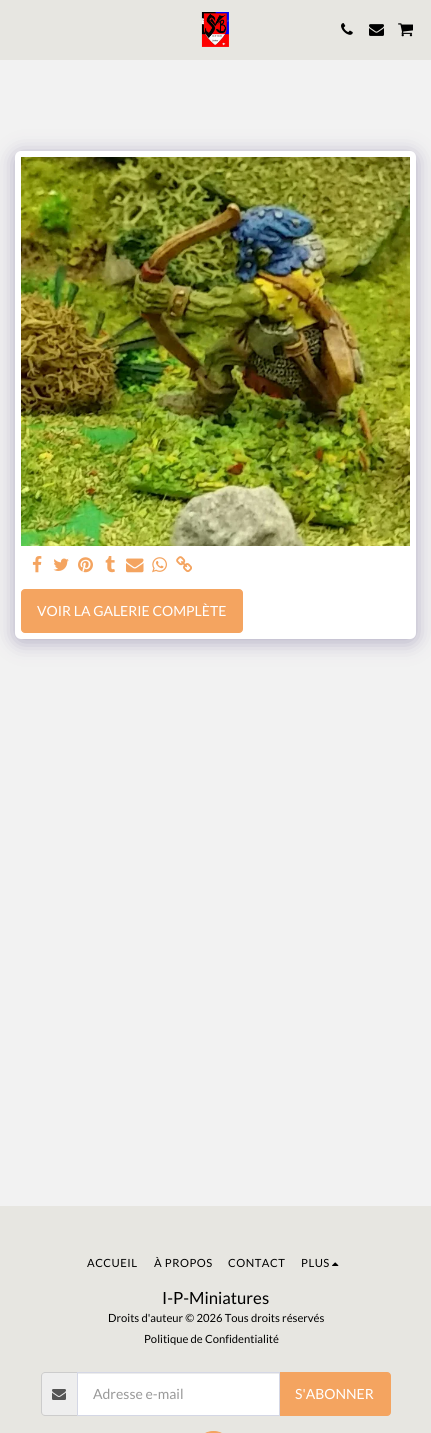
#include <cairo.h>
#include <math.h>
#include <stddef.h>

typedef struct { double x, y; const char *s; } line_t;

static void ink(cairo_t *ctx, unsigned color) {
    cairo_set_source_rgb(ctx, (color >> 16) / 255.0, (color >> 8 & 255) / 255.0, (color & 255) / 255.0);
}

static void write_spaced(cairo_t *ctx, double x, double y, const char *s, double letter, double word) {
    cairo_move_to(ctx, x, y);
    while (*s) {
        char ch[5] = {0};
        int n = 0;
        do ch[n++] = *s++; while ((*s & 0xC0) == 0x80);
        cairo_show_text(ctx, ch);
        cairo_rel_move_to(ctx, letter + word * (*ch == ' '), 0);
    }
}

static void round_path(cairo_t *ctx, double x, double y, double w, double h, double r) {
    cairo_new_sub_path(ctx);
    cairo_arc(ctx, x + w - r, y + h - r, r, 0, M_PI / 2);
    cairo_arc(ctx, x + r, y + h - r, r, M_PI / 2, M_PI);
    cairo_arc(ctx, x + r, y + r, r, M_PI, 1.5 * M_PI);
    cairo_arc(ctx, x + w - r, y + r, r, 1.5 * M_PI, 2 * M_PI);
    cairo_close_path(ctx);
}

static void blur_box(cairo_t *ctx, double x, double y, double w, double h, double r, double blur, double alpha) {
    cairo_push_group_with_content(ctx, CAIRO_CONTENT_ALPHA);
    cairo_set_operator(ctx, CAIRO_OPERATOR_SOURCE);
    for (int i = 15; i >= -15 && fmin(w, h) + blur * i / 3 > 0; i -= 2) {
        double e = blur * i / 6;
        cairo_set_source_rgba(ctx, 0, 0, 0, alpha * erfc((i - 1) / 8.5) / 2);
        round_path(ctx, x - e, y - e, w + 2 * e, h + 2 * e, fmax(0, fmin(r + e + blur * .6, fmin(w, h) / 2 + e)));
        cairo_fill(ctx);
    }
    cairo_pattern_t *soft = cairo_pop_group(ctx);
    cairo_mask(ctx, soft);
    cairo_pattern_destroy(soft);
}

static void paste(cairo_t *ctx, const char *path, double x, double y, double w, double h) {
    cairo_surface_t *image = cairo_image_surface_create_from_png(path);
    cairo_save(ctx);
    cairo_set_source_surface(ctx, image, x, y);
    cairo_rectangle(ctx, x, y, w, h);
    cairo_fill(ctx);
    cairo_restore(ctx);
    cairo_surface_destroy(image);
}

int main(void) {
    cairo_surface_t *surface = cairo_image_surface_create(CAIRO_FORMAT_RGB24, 431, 1433);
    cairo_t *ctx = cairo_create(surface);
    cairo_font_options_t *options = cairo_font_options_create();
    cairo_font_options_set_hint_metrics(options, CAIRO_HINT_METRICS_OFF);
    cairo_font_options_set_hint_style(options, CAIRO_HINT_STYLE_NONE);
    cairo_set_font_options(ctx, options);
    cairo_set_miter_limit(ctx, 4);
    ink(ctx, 0xF2F2F2);
    cairo_paint(ctx);
    ink(ctx, 0xE7E6E1);
    cairo_rectangle(ctx, 0, 0, 431, 60);
    cairo_fill(ctx);
    paste(ctx, "media/1.png", 201, 12, 28, 35);
    paste(ctx, "media/2.png", 341, 23, 12, 12);
    paste(ctx, "media/3.png", 369, 24, 15, 12);
    paste(ctx, "media/4.png", 398, 23, 15, 14);
    ink(ctx, 0x4D3F7A);
    blur_box(ctx, 15, 154, 401, 488, 6, 10, 0.4);
    ink(ctx, 0xFFFFFF);
    round_path(ctx, 15, 151, 401, 488, 6);
    cairo_fill(ctx);
    paste(ctx, "media/5.png", 21, 157, 389, 389);
    paste(ctx, "media/6.png", 32, 556, 10, 17);
    paste(ctx, "media/7.png", 53, 558, 16, 13);
    paste(ctx, "media/8.png", 78, 557, 15, 16);
    paste(ctx, "media/9.png", 105, 556, 10, 17);
    paste(ctx, "media/10.png", 126, 558, 18, 15);
    paste(ctx, "media/11.png", 152, 557, 15, 16);
    paste(ctx, "media/12.png", 176, 556, 16, 17);
    ink(ctx, 0xF4A460);
    round_path(ctx, 21.5, 589.5, 221, 43, 3.5);
    cairo_fill_preserve(ctx);
    cairo_set_line_width(ctx, 1);
    cairo_stroke(ctx);
    cairo_select_font_face(ctx, "Lato", CAIRO_FONT_SLANT_NORMAL, CAIRO_FONT_WEIGHT_NORMAL);
    cairo_set_font_size(ctx, 14);
    ink(ctx, 0xFFFFFF);
    cairo_move_to(ctx, 37, 616);
    cairo_show_text(ctx, "VOIR LA GALERIE COMPLÈTE");
    ink(ctx, 0xE7E6E1);
    cairo_rectangle(ctx, 0, 1206, 431, 227);
    cairo_fill(ctx);
    cairo_set_font_size(ctx, 11.25);
    ink(ctx, 0x000000);
    {
        static const line_t items[] = {
            {87, 1267, "ACCUEIL"},
            {154, 1267, "À PROPOS"},
            {228, 1267, "CONTACT"},
            {301, 1267, "PLUS"},
        };
        for (size_t i = 0; i < sizeof items / sizeof *items; i++) {
            write_spaced(ctx, items[i].x, items[i].y, items[i].s, 0.5, 0);
        }
    }
    paste(ctx, "media/13.png", 332, 1262, 7, 4);
    cairo_set_font_size(ctx, 16.75);
    cairo_move_to(ctx, 162, 1304);
    cairo_show_text(ctx, "I-P-Miniatures");
    cairo_set_font_size(ctx, 11.25);
    cairo_move_to(ctx, 108, 1322);
    cairo_show_text(ctx, "Droits d'auteur © 2026 Tous droits réservés");
    cairo_move_to(ctx, 144, 1343);
    cairo_show_text(ctx, "Politique de Confidentialité");
    ink(ctx, 0xEEEEEE);
    cairo_new_path(ctx);
    cairo_move_to(ctx, 45, 1373);
    cairo_line_to(ctx, 77, 1373);
    cairo_line_to(ctx, 77, 1415);
    cairo_line_to(ctx, 45, 1415);
    cairo_curve_to(ctx, 43.5, 1415, 42, 1413.5, 42, 1412);
    cairo_line_to(ctx, 42, 1376);
    cairo_curve_to(ctx, 42, 1374.5, 43.5, 1373, 45, 1373);
    cairo_close_path(ctx);
    cairo_fill(ctx);
    ink(ctx, 0xCCCCCC);
    cairo_set_fill_rule(ctx, CAIRO_FILL_RULE_EVEN_ODD);
    cairo_new_path(ctx);
    cairo_move_to(ctx, 45, 1372);
    cairo_line_to(ctx, 77, 1372);
    cairo_line_to(ctx, 77, 1416);
    cairo_line_to(ctx, 45, 1416);
    cairo_curve_to(ctx, 43, 1416, 41, 1414, 41, 1412);
    cairo_line_to(ctx, 41, 1376);
    cairo_curve_to(ctx, 41, 1374, 43, 1372, 45, 1372);
    cairo_close_path(ctx);
    cairo_move_to(ctx, 45, 1373);
    cairo_line_to(ctx, 77, 1373);
    cairo_line_to(ctx, 77, 1415);
    cairo_line_to(ctx, 45, 1415);
    cairo_curve_to(ctx, 43, 1415, 42, 1414, 42, 1412);
    cairo_line_to(ctx, 42, 1376);
    cairo_curve_to(ctx, 42, 1374, 43, 1373, 45, 1373);
    cairo_close_path(ctx);
    cairo_fill(ctx);
    paste(ctx, "media/14.png", 52, 1389, 14, 11);
    ink(ctx, 0xFFFFFF);
    cairo_rectangle(ctx, 78, 1374, 201, 41);
    cairo_fill(ctx);
    ink(ctx, 0xECECEC);
    cairo_rectangle(ctx, 78, 1373, 201, 1);
    cairo_fill(ctx);
    ink(ctx, 0xF4A460);
    cairo_new_path(ctx);
    cairo_move_to(ctx, 279.5, 1372.5);
    cairo_line_to(ctx, 387, 1372.5);
    cairo_curve_to(ctx, 389, 1372.5, 390.5, 1374, 390.5, 1376);
    cairo_line_to(ctx, 390.5, 1412);
    cairo_curve_to(ctx, 390.5, 1414, 389, 1415.5, 387, 1415.5);
    cairo_line_to(ctx, 279.5, 1415.5);
    cairo_close_path(ctx);
    cairo_fill_preserve(ctx);
    cairo_stroke(ctx);
    cairo_rectangle(ctx, 77.5, 1372.5, 202, 43);
    ink(ctx, 0xD4D7E5);
    cairo_stroke(ctx);
    cairo_set_font_size(ctx, 14);
    ink(ctx, 0x999999);
    cairo_move_to(ctx, 93, 1399);
    cairo_show_text(ctx, "Adresse e-mail");
    ink(ctx, 0xFFFFFF);
    cairo_move_to(ctx, 295, 1399);
    cairo_show_text(ctx, "S'ABONNER");
    ink(ctx, 0xF4A460);
    round_path(ctx, 195.5, 1431.5, 36, 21, 18);
    cairo_fill_preserve(ctx);
    cairo_stroke(ctx);
    cairo_surface_write_to_png(surface, "image.png");
    cairo_font_options_destroy(options);
    cairo_destroy(ctx);
    cairo_surface_destroy(surface);
    return 0;
}
